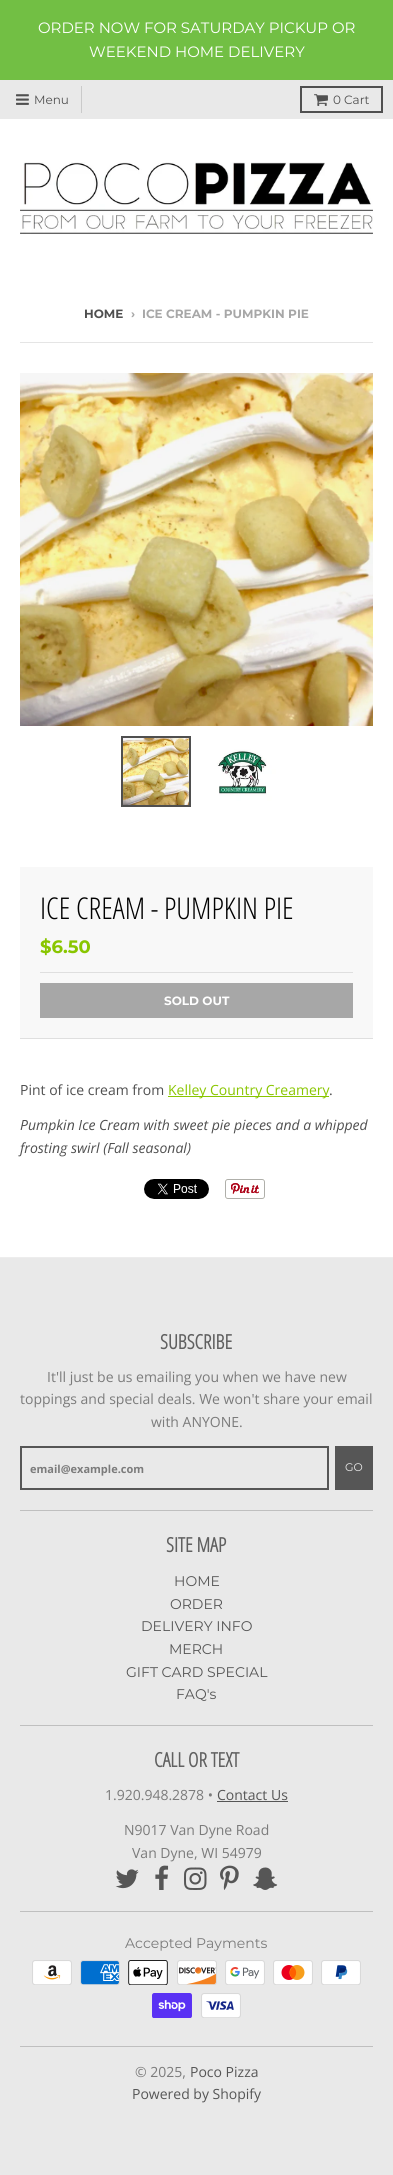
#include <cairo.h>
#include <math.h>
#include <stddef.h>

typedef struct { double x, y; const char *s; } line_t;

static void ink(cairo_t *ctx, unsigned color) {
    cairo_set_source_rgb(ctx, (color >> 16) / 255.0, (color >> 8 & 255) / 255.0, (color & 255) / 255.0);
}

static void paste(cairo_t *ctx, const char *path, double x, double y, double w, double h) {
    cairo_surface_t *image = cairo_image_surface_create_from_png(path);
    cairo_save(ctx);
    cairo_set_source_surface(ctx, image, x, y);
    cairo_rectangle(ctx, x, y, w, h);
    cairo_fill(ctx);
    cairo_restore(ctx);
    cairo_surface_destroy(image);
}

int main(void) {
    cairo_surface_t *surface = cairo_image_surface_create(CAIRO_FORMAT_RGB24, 393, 2175);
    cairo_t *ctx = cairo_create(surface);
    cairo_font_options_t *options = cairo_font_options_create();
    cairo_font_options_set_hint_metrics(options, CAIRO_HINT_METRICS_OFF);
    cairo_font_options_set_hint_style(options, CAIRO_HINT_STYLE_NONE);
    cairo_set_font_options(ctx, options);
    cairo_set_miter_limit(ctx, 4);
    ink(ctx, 0xE9E9E9);
    cairo_paint(ctx);
    ink(ctx, 0xFFFFFF);
    cairo_rectangle(ctx, 0, 119, 393, 1138);
    cairo_fill(ctx);
    ink(ctx, 0x72BF44);
    cairo_rectangle(ctx, 0, 0, 393, 80);
    cairo_fill(ctx);
    cairo_select_font_face(ctx, "Montserrat", CAIRO_FONT_SLANT_NORMAL, CAIRO_FONT_WEIGHT_NORMAL);
    cairo_set_font_size(ctx, 15);
    ink(ctx, 0xFFFFFF);
    cairo_move_to(ctx, 38, 33);
    cairo_show_text(ctx, "ORDER NOW FOR SATURDAY PICKUP OR");
    cairo_move_to(ctx, 89, 57);
    cairo_show_text(ctx, "WEEKEND HOME DELIVERY");
    ink(ctx, 0xCACACA);
    cairo_rectangle(ctx, 81, 86, 1, 27);
    cairo_fill(ctx);
    paste(ctx, "media/1.png", 16, 94, 13, 11);
    cairo_set_font_size(ctx, 12);
    ink(ctx, 0x4F4F4F);
    cairo_move_to(ctx, 34, 104);
    cairo_show_text(ctx, "Menu");
    cairo_rectangle(ctx, 301, 87, 81, 25);
    ink(ctx, 0x505050);
    cairo_stroke(ctx);
    paste(ctx, "media/2.png", 314, 94, 14, 12);
    ink(ctx, 0x4F4F4F);
    cairo_move_to(ctx, 333, 104);
    cairo_show_text(ctx, "0 Cart");
    paste(ctx, "media/3.png", 20, 162, 353, 73);
    ink(ctx, 0xEDEDED);
    cairo_rectangle(ctx, 0, 1257, 393, 1);
    cairo_fill(ctx);
    cairo_select_font_face(ctx, "Montserrat", CAIRO_FONT_SLANT_NORMAL, CAIRO_FONT_WEIGHT_BOLD);
    ink(ctx, 0x4F4F4F);
    cairo_move_to(ctx, 84, 318);
    cairo_show_text(ctx, "HOME");
    ink(ctx, 0xA7A7A7);
    cairo_move_to(ctx, 131, 318);
    cairo_show_text(ctx, "›");
    cairo_move_to(ctx, 142, 318);
    cairo_show_text(ctx, "ICE CREAM - PUMPKIN PIE");
    ink(ctx, 0xE5E5E5);
    cairo_rectangle(ctx, 20, 342, 353, 1);
    cairo_fill(ctx);
    paste(ctx, "media/4.png", 20, 373, 353, 353);
    cairo_rectangle(ctx, 122, 737, 68, 69);
    ink(ctx, 0x4F4F4F);
    cairo_stroke(ctx);
    paste(ctx, "media/5.png", 123, 738, 66, 67);
    paste(ctx, "media/6.png", 210, 738, 66, 67);
    ink(ctx, 0xF8F8F8);
    cairo_rectangle(ctx, 20, 867, 353, 171);
    cairo_fill(ctx);
    ink(ctx, 0xDFDFDF);
    cairo_rectangle(ctx, 20, 1038, 353, 1);
    cairo_fill(ctx);
    cairo_select_font_face(ctx, "Open Sans Condensed Light", CAIRO_FONT_SLANT_NORMAL, CAIRO_FONT_WEIGHT_NORMAL);
    cairo_set_font_size(ctx, 30);
    ink(ctx, 0x000000);
    cairo_move_to(ctx, 40, 919);
    cairo_show_text(ctx, "ICE CREAM - PUMPKIN PIE");
    ink(ctx, 0xDFDFDF);
    cairo_rectangle(ctx, 40, 972, 313, 1);
    cairo_fill(ctx);
    cairo_select_font_face(ctx, "Montserrat", CAIRO_FONT_SLANT_NORMAL, CAIRO_FONT_WEIGHT_BOLD);
    cairo_set_font_size(ctx, 18);
    ink(ctx, 0x89C600);
    cairo_move_to(ctx, 40, 953);
    cairo_show_text(ctx, "$6.50");
    ink(ctx, 0xA7A7A7);
    cairo_rectangle(ctx, 40, 983, 313, 35);
    cairo_fill(ctx);
    cairo_set_font_size(ctx, 12);
    ink(ctx, 0xFFFFFF);
    cairo_move_to(ctx, 164, 1005);
    cairo_show_text(ctx, "SOLD OUT");
    cairo_select_font_face(ctx, "Open Sans", CAIRO_FONT_SLANT_NORMAL, CAIRO_FONT_WEIGHT_NORMAL);
    cairo_set_font_size(ctx, 14);
    ink(ctx, 0x4F4F4F);
    cairo_move_to(ctx, 20, 1095);
    cairo_show_text(ctx, "Pint of ice cream from");
    ink(ctx, 0x89C600);
    cairo_rectangle(ctx, 168, 1096, 161, 1);
    cairo_fill(ctx);
    cairo_move_to(ctx, 168, 1095);
    cairo_show_text(ctx, "Kelley Country Creamery");
    ink(ctx, 0x4F4F4F);
    cairo_move_to(ctx, 329, 1095);
    cairo_show_text(ctx, ".");
    cairo_select_font_face(ctx, "Open Sans", CAIRO_FONT_SLANT_ITALIC, CAIRO_FONT_WEIGHT_NORMAL);
    cairo_move_to(ctx, 20, 1130);
    cairo_show_text(ctx, "Pumpkin Ice Cream with sweet pie pieces and a whipped");
    cairo_move_to(ctx, 20, 1153);
    cairo_show_text(ctx, "frosting swirl (Fall seasonal)");
    paste(ctx, "media/7.png", 144, 1179, 65, 20);
    paste(ctx, "media/8.png", 225, 1179, 40, 20);
    cairo_select_font_face(ctx, "Open Sans Condensed", CAIRO_FONT_SLANT_NORMAL, CAIRO_FONT_WEIGHT_BOLD);
    cairo_set_font_size(ctx, 20);
    ink(ctx, 0x606060);
    cairo_move_to(ctx, 160, 1349);
    cairo_show_text(ctx, "SUBSCRIBE");
    cairo_select_font_face(ctx, "Open Sans", CAIRO_FONT_SLANT_NORMAL, CAIRO_FONT_WEIGHT_NORMAL);
    cairo_set_font_size(ctx, 14);
    ink(ctx, 0x7B7B7B);
    {
        static const line_t items[] = {
            {47, 1382, "It'll just be us emailing you when we have new"},
            {20, 1404, "toppings and special deals. We won't share your email"},
            {151, 1427, "with ANYONE."},
        };
        for (size_t i = 0; i < sizeof items / sizeof *items; i++) {
            cairo_move_to(ctx, items[i].x, items[i].y);
            cairo_show_text(ctx, items[i].s);
        }
    }
    ink(ctx, 0xBFBFBF);
    cairo_rectangle(ctx, 20, 1510, 353, 1);
    cairo_fill(ctx);
    cairo_rectangle(ctx, 21, 1447, 307, 42);
    ink(ctx, 0x565656);
    cairo_stroke(ctx);
    cairo_select_font_face(ctx, "Open Sans", CAIRO_FONT_SLANT_NORMAL, CAIRO_FONT_WEIGHT_BOLD);
    cairo_set_font_size(ctx, 11);
    ink(ctx, 0x7B7B7B);
    cairo_move_to(ctx, 30, 1473);
    cairo_show_text(ctx, "email@example.com");
    ink(ctx, 0x565656);
    cairo_rectangle(ctx, 335, 1446, 38, 44);
    cairo_fill(ctx);
    cairo_select_font_face(ctx, "Montserrat", CAIRO_FONT_SLANT_NORMAL, CAIRO_FONT_WEIGHT_NORMAL);
    ink(ctx, 0xE9E9E9);
    cairo_move_to(ctx, 345, 1471);
    cairo_show_text(ctx, "GO");
    cairo_select_font_face(ctx, "Open Sans Condensed", CAIRO_FONT_SLANT_NORMAL, CAIRO_FONT_WEIGHT_BOLD);
    cairo_set_font_size(ctx, 20);
    ink(ctx, 0x606060);
    cairo_move_to(ctx, 166, 1552);
    cairo_show_text(ctx, "SITE MAP");
    ink(ctx, 0xBFBFBF);
    cairo_rectangle(ctx, 20, 1725, 353, 1);
    cairo_fill(ctx);
    cairo_select_font_face(ctx, "Montserrat", CAIRO_FONT_SLANT_NORMAL, CAIRO_FONT_WEIGHT_NORMAL);
    cairo_set_font_size(ctx, 14);
    ink(ctx, 0x565656);
    {
        static const line_t items[] = {
            {174, 1586, "HOME"},
            {170, 1609, "ORDER"},
            {141, 1631, "DELIVERY INFO"},
            {169, 1654, "MERCH"},
            {126, 1677, "GIFT CARD SPECIAL"},
            {176, 1699, "FAQ's"},
        };
        for (size_t i = 0; i < sizeof items / sizeof *items; i++) {
            cairo_move_to(ctx, items[i].x, items[i].y);
            cairo_show_text(ctx, items[i].s);
        }
    }
    cairo_select_font_face(ctx, "Open Sans Condensed", CAIRO_FONT_SLANT_NORMAL, CAIRO_FONT_WEIGHT_BOLD);
    cairo_set_font_size(ctx, 20);
    ink(ctx, 0x606060);
    cairo_move_to(ctx, 154, 1767);
    cairo_show_text(ctx, "CALL OR TEXT");
    cairo_select_font_face(ctx, "Open Sans", CAIRO_FONT_SLANT_NORMAL, CAIRO_FONT_WEIGHT_NORMAL);
    cairo_set_font_size(ctx, 14);
    ink(ctx, 0x7B7B7B);
    cairo_move_to(ctx, 105, 1800);
    cairo_show_text(ctx, "1.920.948.2878 •");
    ink(ctx, 0x565656);
    cairo_move_to(ctx, 217, 1800);
    cairo_show_text(ctx, "Contact Us");
    cairo_rectangle(ctx, 217, 1801, 71, 1);
    cairo_fill(ctx);
    ink(ctx, 0x7B7B7B);
    cairo_move_to(ctx, 124, 1835);
    cairo_show_text(ctx, "N9017 Van Dyne Road");
    cairo_move_to(ctx, 132, 1858);
    cairo_show_text(ctx, "Van Dyne, WI 54979");
    paste(ctx, "media/9.png", 115, 1869, 24, 20);
    paste(ctx, "media/10.png", 155, 1865, 14, 25);
    paste(ctx, "media/11.png", 184, 1867, 23, 23);
    paste(ctx, "media/12.png", 220, 1865, 19, 25);
    paste(ctx, "media/13.png", 253, 1867, 25, 23);
    ink(ctx, 0xBFBFBF);
    cairo_rectangle(ctx, 20, 1911, 353, 1);
    cairo_fill(ctx);
    cairo_select_font_face(ctx, "Montserrat", CAIRO_FONT_SLANT_NORMAL, CAIRO_FONT_WEIGHT_NORMAL);
    ink(ctx, 0x7B7B7B);
    cairo_move_to(ctx, 125, 1948);
    cairo_show_text(ctx, "Accepted Payments");
    ink(ctx, 0xBFBFBF);
    cairo_rectangle(ctx, 20, 2046, 353, 1);
    cairo_fill(ctx);
    paste(ctx, "media/14.png", 32, 1960, 40, 25);
    paste(ctx, "media/15.png", 80, 1960, 40, 25);
    paste(ctx, "media/16.png", 128, 1960, 40, 25);
    paste(ctx, "media/17.png", 177, 1960, 40, 25);
    paste(ctx, "media/18.png", 225, 1960, 40, 25);
    paste(ctx, "media/19.png", 273, 1960, 40, 25);
    paste(ctx, "media/20.png", 321, 1960, 40, 25);
    paste(ctx, "media/21.png", 152, 1993, 40, 25);
    paste(ctx, "media/22.png", 201, 1993, 40, 25);
    cairo_select_font_face(ctx, "Open Sans", CAIRO_FONT_SLANT_NORMAL, CAIRO_FONT_WEIGHT_NORMAL);
    ink(ctx, 0x7B7B7B);
    cairo_move_to(ctx, 135, 2077);
    cairo_show_text(ctx, "© 2025,");
    ink(ctx, 0x565656);
    cairo_move_to(ctx, 190, 2077);
    cairo_show_text(ctx, "Poco Pizza");
    cairo_move_to(ctx, 132, 2099);
    cairo_show_text(ctx, "Powered by Shopify");
    cairo_surface_write_to_png(surface, "image.png");
    cairo_font_options_destroy(options);
    cairo_destroy(ctx);
    cairo_surface_destroy(surface);
    return 0;
}
